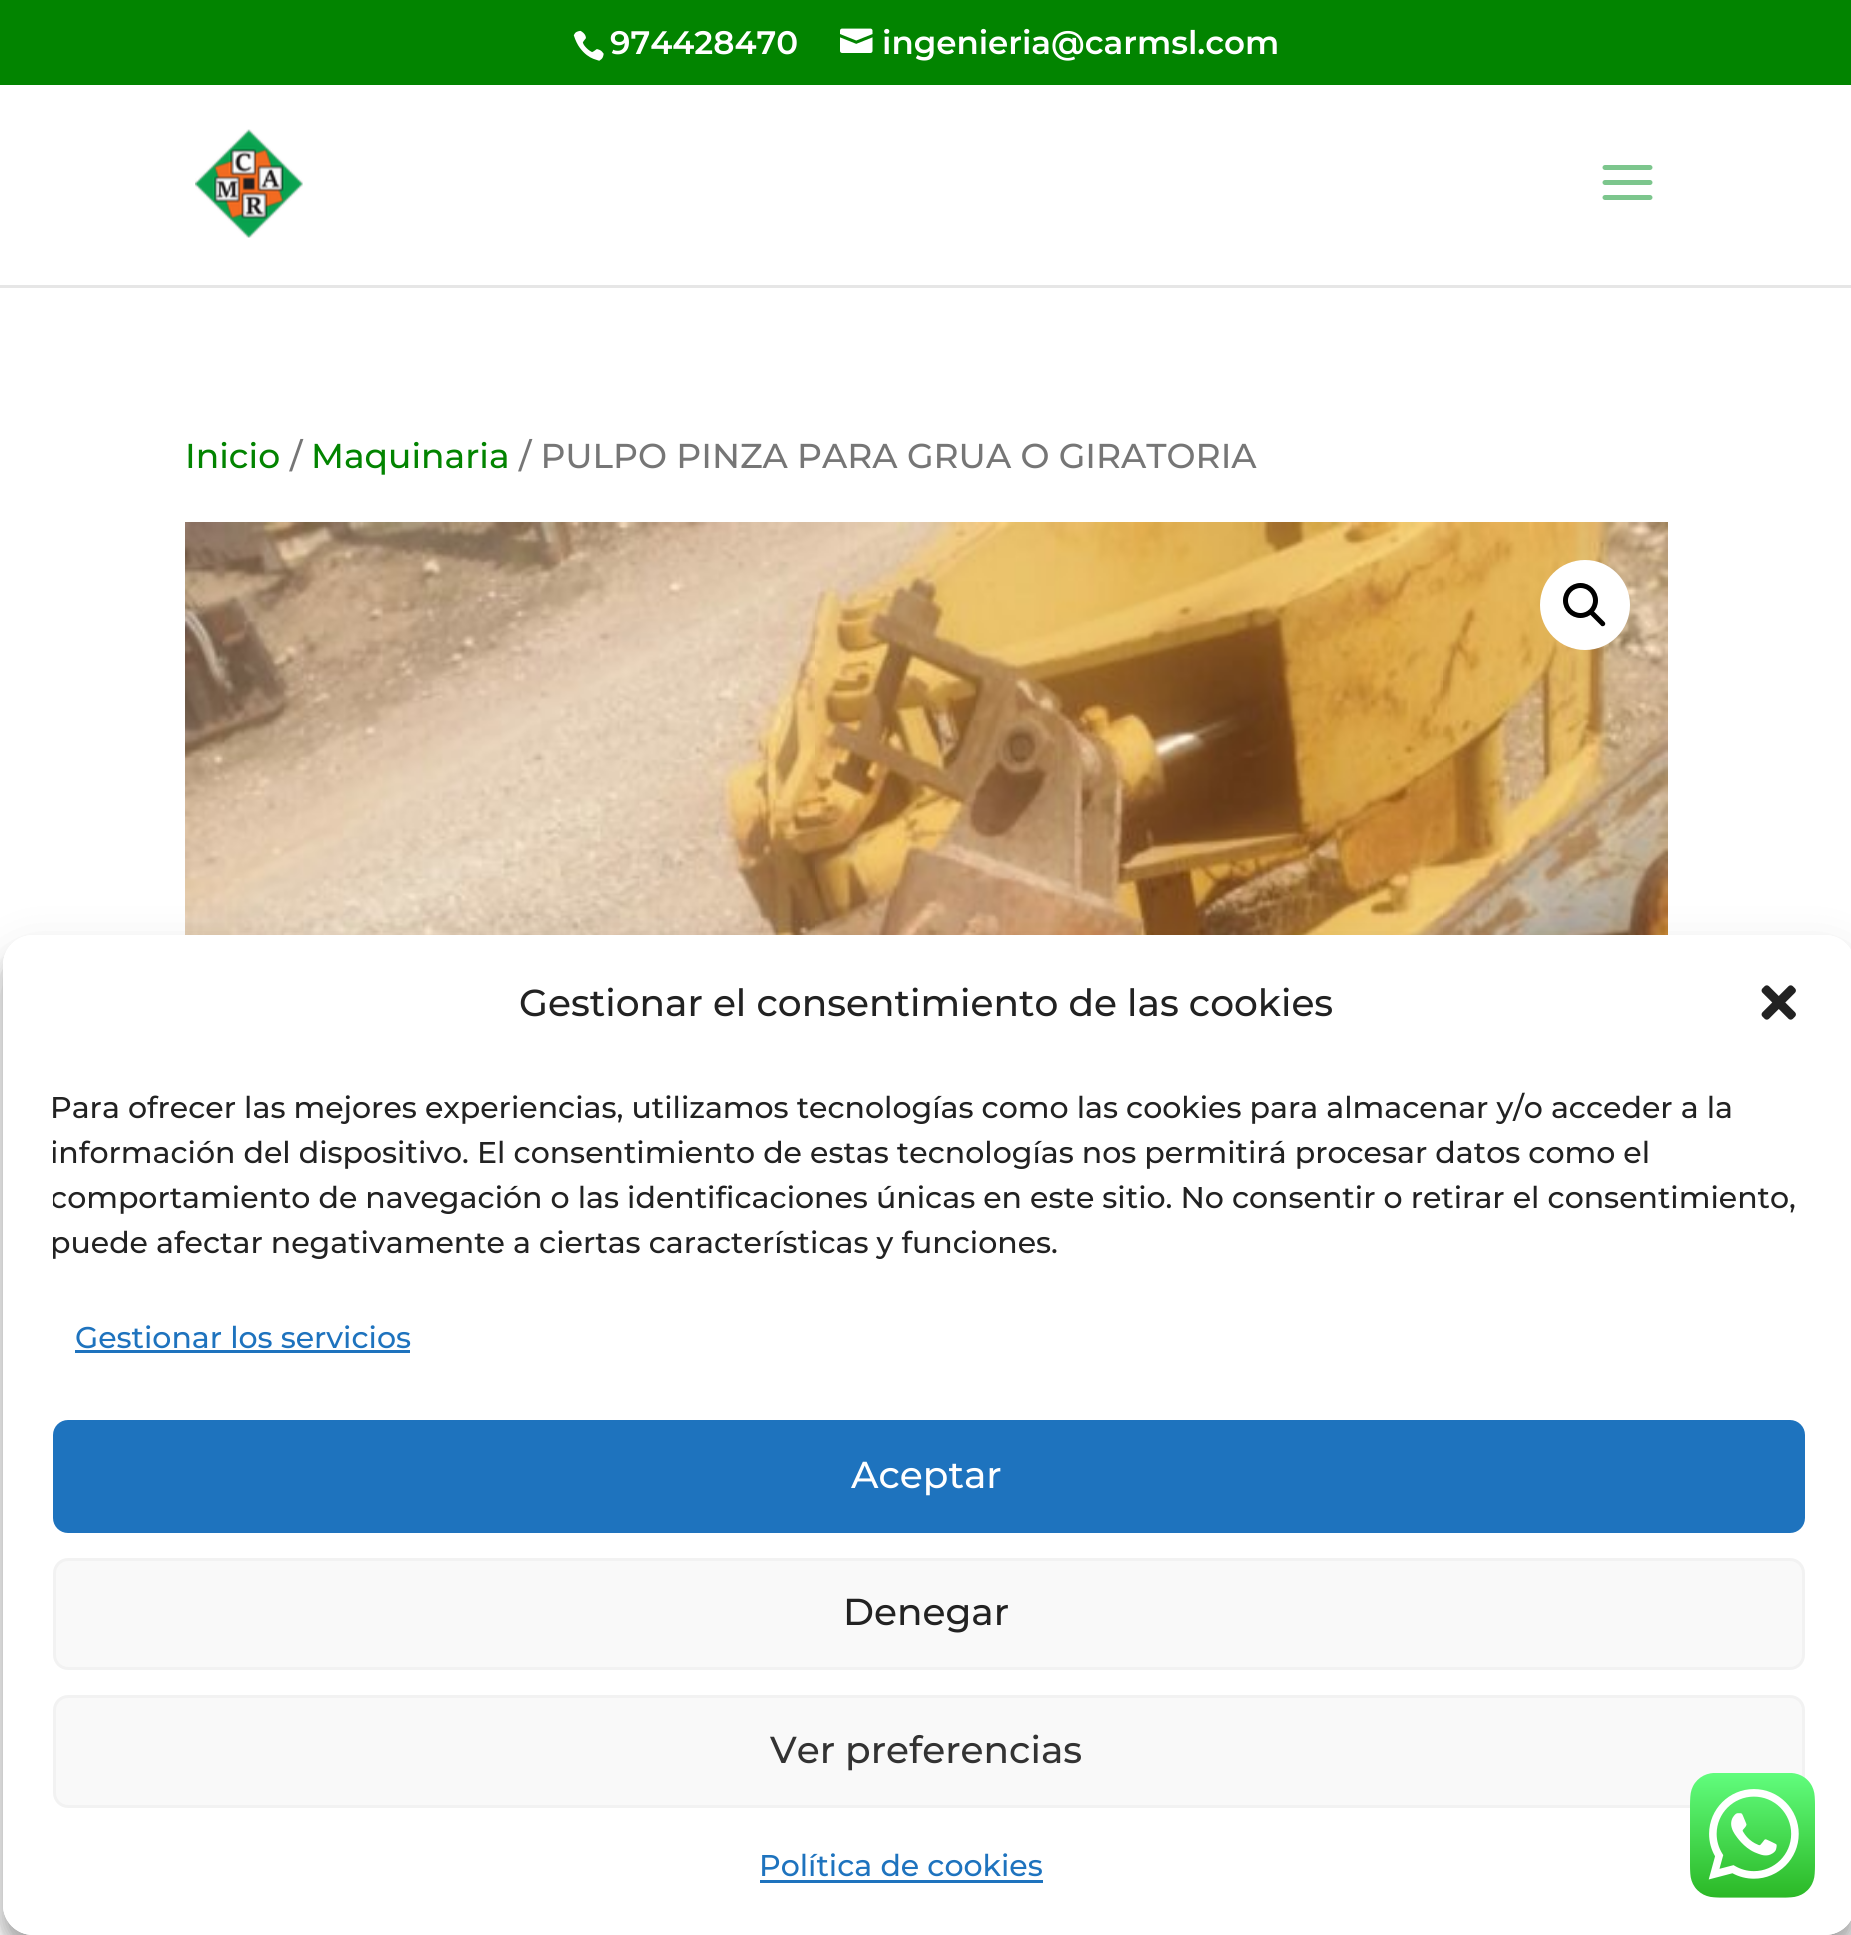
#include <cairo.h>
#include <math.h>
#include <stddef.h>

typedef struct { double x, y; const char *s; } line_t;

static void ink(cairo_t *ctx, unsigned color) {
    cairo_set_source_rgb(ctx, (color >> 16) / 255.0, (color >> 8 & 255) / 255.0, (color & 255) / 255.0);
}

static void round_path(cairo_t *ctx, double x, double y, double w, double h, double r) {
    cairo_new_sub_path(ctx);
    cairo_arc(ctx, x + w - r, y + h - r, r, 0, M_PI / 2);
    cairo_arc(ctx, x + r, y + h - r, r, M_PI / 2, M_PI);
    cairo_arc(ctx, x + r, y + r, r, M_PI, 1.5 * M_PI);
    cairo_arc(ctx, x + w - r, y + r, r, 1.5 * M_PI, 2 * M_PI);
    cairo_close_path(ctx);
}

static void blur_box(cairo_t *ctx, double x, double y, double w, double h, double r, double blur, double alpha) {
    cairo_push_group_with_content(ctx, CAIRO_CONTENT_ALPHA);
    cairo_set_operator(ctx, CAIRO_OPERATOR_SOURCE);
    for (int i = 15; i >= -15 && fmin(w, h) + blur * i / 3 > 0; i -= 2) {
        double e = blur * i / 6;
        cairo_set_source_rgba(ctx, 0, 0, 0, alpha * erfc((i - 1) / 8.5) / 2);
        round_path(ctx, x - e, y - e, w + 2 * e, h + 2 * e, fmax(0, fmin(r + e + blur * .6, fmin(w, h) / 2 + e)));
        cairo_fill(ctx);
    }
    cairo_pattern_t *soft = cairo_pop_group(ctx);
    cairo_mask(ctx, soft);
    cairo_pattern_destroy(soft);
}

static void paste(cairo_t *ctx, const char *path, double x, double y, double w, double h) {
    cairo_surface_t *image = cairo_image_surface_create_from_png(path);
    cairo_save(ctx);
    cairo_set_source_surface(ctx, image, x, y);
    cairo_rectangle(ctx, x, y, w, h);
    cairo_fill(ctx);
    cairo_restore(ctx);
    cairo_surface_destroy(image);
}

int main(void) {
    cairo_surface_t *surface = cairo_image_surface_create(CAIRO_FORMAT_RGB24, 1851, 1935);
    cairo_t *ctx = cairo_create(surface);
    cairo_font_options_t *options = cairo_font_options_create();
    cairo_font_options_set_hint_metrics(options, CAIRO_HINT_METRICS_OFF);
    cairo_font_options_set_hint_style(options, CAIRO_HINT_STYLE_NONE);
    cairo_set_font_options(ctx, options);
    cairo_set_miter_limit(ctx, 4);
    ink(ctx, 0xFFFFFF);
    cairo_paint(ctx);
    ink(ctx, 0x028400);
    cairo_rectangle(ctx, 0, 0, 1851, 85);
    cairo_fill(ctx);
    paste(ctx, "media/1.png", 573, 30, 31, 31);
    cairo_select_font_face(ctx, "Montserrat SemiBold", CAIRO_FONT_SLANT_NORMAL, CAIRO_FONT_WEIGHT_NORMAL);
    cairo_set_font_size(ctx, 32.5);
    ink(ctx, 0xFFFFFF);
    cairo_move_to(ctx, 610, 54);
    cairo_show_text(ctx, "974428470");
    paste(ctx, "media/2.png", 840, 28, 33, 25);
    cairo_move_to(ctx, 882, 54);
    cairo_show_text(ctx, "ingenieria@carmsl.com");
    ink(ctx, 0xE6E6E6);
    cairo_new_path(ctx);
    cairo_move_to(ctx, 0, 285);
    cairo_line_to(ctx, 0, 288);
    cairo_line_to(ctx, 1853, 288);
    cairo_line_to(ctx, 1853, 88);
    cairo_line_to(ctx, 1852, 88);
    cairo_line_to(ctx, 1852, 285);
    cairo_close_path(ctx);
    cairo_fill(ctx);
    paste(ctx, "media/3.png", 195, 129, 108, 109);
    paste(ctx, "media/4.png", 1602, 165, 51, 35);
    cairo_select_font_face(ctx, "Montserrat Medium", CAIRO_FONT_SLANT_NORMAL, CAIRO_FONT_WEIGHT_NORMAL);
    cairo_set_font_size(ctx, 34.5);
    ink(ctx, 0x028400);
    cairo_move_to(ctx, 185, 468);
    cairo_show_text(ctx, "Inicio");
    ink(ctx, 0x767676);
    cairo_move_to(ctx, 290, 468);
    cairo_show_text(ctx, "/");
    ink(ctx, 0x028400);
    cairo_move_to(ctx, 311, 468);
    cairo_show_text(ctx, "Maquinaria");
    ink(ctx, 0x767676);
    cairo_move_to(ctx, 519, 468);
    cairo_show_text(ctx, "/ PULPO PINZA PARA GRUA O GIRATORIA");
    paste(ctx, "media/5.png", 185, 522, 1483, 413);
    ink(ctx, 0xFFFFFF);
    cairo_arc(ctx, 1585, 605, 45, 0, 2 * M_PI);
    cairo_fill(ctx);
    cairo_arc(ctx, 1580.5, 600.5, 15, 0, 2 * M_PI);
    ink(ctx, 0x000000);
    cairo_set_line_width(ctx, 5);
    cairo_stroke(ctx);
    cairo_new_path(ctx);
    cairo_move_to(ctx, 1590, 611);
    cairo_curve_to(ctx, 1591, 610, 1592.5, 610, 1593.5, 611);
    cairo_line_to(ctx, 1604.5, 622);
    cairo_curve_to(ctx, 1605.5, 623, 1605.5, 624.5, 1604.5, 625.5);
    cairo_curve_to(ctx, 1603.5, 626.5, 1601.5, 626.5, 1601, 625.5);
    cairo_line_to(ctx, 1590, 614.5);
    cairo_curve_to(ctx, 1589, 613.5, 1589, 612, 1590, 611);
    cairo_close_path(ctx);
    cairo_fill(ctx);
    cairo_save(ctx);
    cairo_set_fill_rule(ctx, CAIRO_FILL_RULE_EVEN_ODD);
    cairo_new_path(ctx);
    cairo_move_to(ctx, 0, 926);
    cairo_line_to(ctx, 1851, 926);
    cairo_line_to(ctx, 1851, 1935);
    cairo_line_to(ctx, 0, 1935);
    cairo_close_path(ctx);
    cairo_move_to(ctx, 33, 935);
    cairo_line_to(ctx, 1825, 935);
    cairo_curve_to(ctx, 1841.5, 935, 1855, 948.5, 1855, 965);
    cairo_line_to(ctx, 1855, 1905);
    cairo_curve_to(ctx, 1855, 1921.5, 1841.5, 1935, 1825, 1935);
    cairo_line_to(ctx, 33, 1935);
    cairo_curve_to(ctx, 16.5, 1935, 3, 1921.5, 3, 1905);
    cairo_line_to(ctx, 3, 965);
    cairo_curve_to(ctx, 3, 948.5, 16.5, 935, 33, 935);
    cairo_close_path(ctx);
    cairo_clip(ctx);
    ink(ctx, 0x000000);
    blur_box(ctx, 3, 950, 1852, 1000, 30, 7.5, 0.23);
    cairo_restore(ctx);
    cairo_save(ctx);
    cairo_set_fill_rule(ctx, CAIRO_FILL_RULE_EVEN_ODD);
    cairo_new_path(ctx);
    cairo_move_to(ctx, 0, 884);
    cairo_line_to(ctx, 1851, 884);
    cairo_line_to(ctx, 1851, 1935);
    cairo_line_to(ctx, 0, 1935);
    cairo_close_path(ctx);
    cairo_move_to(ctx, 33, 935);
    cairo_line_to(ctx, 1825, 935);
    cairo_curve_to(ctx, 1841.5, 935, 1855, 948.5, 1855, 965);
    cairo_line_to(ctx, 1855, 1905);
    cairo_curve_to(ctx, 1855, 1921.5, 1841.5, 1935, 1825, 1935);
    cairo_line_to(ctx, 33, 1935);
    cairo_curve_to(ctx, 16.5, 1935, 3, 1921.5, 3, 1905);
    cairo_line_to(ctx, 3, 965);
    cairo_curve_to(ctx, 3, 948.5, 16.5, 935, 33, 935);
    cairo_close_path(ctx);
    cairo_clip(ctx);
    ink(ctx, 0x000000);
    blur_box(ctx, 3, 960, 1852, 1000, 30, 25, 0.19);
    cairo_restore(ctx);
    ink(ctx, 0xFFFFFF);
    round_path(ctx, 3, 935, 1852, 1000, 30);
    cairo_fill(ctx);
    cairo_set_font_size(ctx, 37.5);
    ink(ctx, 0x222222);
    cairo_move_to(ctx, 519, 1016);
    cairo_show_text(ctx, "Gestionar el consentimiento de las cookies");
    paste(ctx, "media/6.png", 1761, 985, 35, 35);
    cairo_set_font_size(ctx, 30);
    cairo_move_to(ctx, 50, 1118);
    cairo_show_text(ctx, "Para ofrecer las mejores experiencias, utilizamos tecnologías como las cookies para almacenar y/o acceder a la");
    cairo_save(ctx);
    cairo_rectangle(ctx, 53, 1085, 1752, 193);
    cairo_clip(ctx);
    {
        static const line_t items[] = {
            {50, 1163, "información del dispositivo. El consentimiento de estas tecnologías nos permitirá procesar datos como el"},
            {50, 1208, "comportamiento de navegación o las identificaciones únicas en este sitio. No consentir o retirar el consentimiento,"},
            {50, 1253, "puede afectar negativamente a ciertas características y funciones."},
        };
        for (size_t i = 0; i < sizeof items / sizeof *items; i++) {
            cairo_move_to(ctx, items[i].x, items[i].y);
            cairo_show_text(ctx, items[i].s);
        }
    }
    cairo_restore(ctx);
    ink(ctx, 0x1E73BE);
    cairo_move_to(ctx, 75, 1348);
    cairo_show_text(ctx, "Gestionar los servicios");
    cairo_rectangle(ctx, 75, 1350, 335, 3);
    cairo_fill(ctx);
    round_path(ctx, 54.5, 1421.5, 1749, 110, 13.5);
    cairo_fill_preserve(ctx);
    cairo_set_line_width(ctx, 3);
    cairo_stroke(ctx);
    cairo_set_font_size(ctx, 37.5);
    ink(ctx, 0xFFFFFF);
    cairo_move_to(ctx, 851, 1488);
    cairo_show_text(ctx, "Aceptar");
    ink(ctx, 0xF9F9F9);
    round_path(ctx, 54.5, 1559.5, 1749, 109, 13.5);
    cairo_fill_preserve(ctx);
    ink(ctx, 0xF2F2F2);
    cairo_stroke(ctx);
    ink(ctx, 0x222222);
    cairo_move_to(ctx, 843, 1625);
    cairo_show_text(ctx, "Denegar");
    ink(ctx, 0xF9F9F9);
    round_path(ctx, 54.5, 1696.5, 1749, 110, 13.5);
    cairo_fill_preserve(ctx);
    ink(ctx, 0xF2F2F2);
    cairo_stroke(ctx);
    ink(ctx, 0x333333);
    cairo_move_to(ctx, 770, 1763);
    cairo_show_text(ctx, "Ver preferencias");
    cairo_set_font_size(ctx, 30);
    ink(ctx, 0x1E73BE);
    cairo_move_to(ctx, 759, 1876);
    cairo_show_text(ctx, "Política de cookies");
    cairo_rectangle(ctx, 760, 1880, 283, 3);
    cairo_fill(ctx);
    paste(ctx, "media/7.png", 1690, 1773, 125, 125);
    cairo_surface_write_to_png(surface, "image.png");
    cairo_font_options_destroy(options);
    cairo_destroy(ctx);
    cairo_surface_destroy(surface);
    return 0;
}
